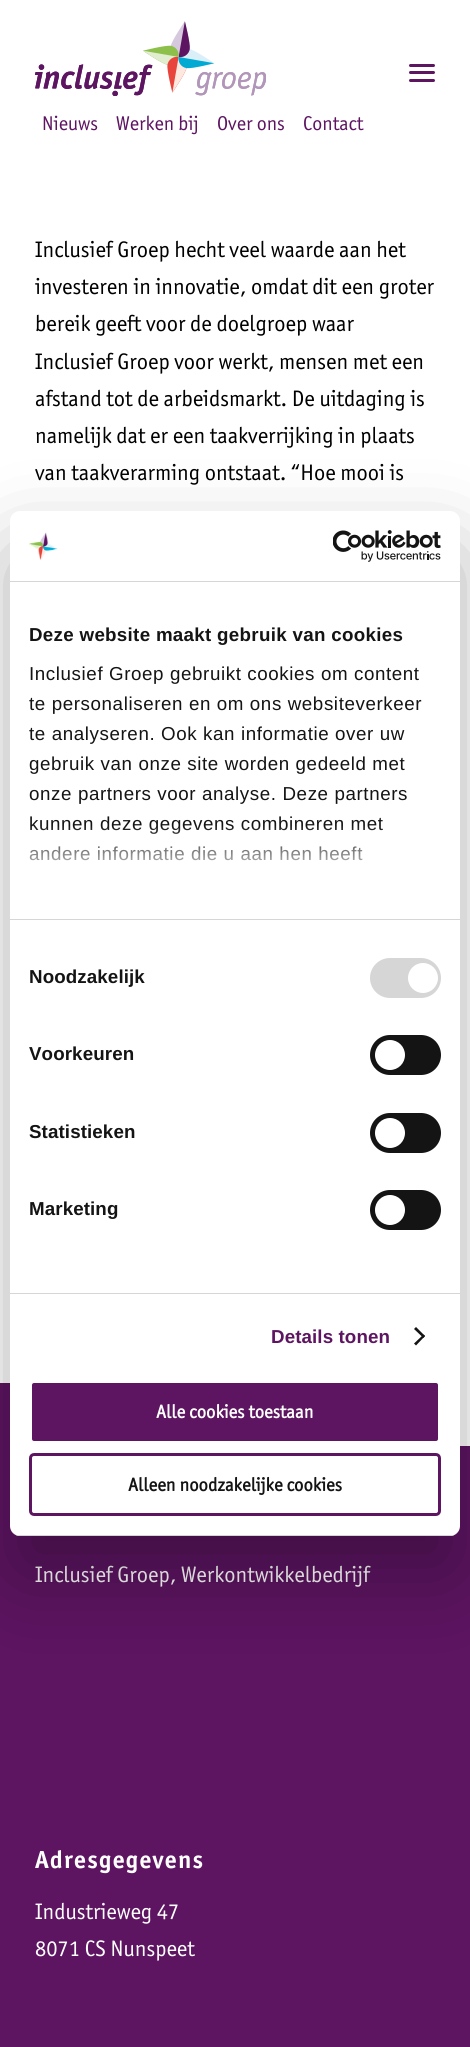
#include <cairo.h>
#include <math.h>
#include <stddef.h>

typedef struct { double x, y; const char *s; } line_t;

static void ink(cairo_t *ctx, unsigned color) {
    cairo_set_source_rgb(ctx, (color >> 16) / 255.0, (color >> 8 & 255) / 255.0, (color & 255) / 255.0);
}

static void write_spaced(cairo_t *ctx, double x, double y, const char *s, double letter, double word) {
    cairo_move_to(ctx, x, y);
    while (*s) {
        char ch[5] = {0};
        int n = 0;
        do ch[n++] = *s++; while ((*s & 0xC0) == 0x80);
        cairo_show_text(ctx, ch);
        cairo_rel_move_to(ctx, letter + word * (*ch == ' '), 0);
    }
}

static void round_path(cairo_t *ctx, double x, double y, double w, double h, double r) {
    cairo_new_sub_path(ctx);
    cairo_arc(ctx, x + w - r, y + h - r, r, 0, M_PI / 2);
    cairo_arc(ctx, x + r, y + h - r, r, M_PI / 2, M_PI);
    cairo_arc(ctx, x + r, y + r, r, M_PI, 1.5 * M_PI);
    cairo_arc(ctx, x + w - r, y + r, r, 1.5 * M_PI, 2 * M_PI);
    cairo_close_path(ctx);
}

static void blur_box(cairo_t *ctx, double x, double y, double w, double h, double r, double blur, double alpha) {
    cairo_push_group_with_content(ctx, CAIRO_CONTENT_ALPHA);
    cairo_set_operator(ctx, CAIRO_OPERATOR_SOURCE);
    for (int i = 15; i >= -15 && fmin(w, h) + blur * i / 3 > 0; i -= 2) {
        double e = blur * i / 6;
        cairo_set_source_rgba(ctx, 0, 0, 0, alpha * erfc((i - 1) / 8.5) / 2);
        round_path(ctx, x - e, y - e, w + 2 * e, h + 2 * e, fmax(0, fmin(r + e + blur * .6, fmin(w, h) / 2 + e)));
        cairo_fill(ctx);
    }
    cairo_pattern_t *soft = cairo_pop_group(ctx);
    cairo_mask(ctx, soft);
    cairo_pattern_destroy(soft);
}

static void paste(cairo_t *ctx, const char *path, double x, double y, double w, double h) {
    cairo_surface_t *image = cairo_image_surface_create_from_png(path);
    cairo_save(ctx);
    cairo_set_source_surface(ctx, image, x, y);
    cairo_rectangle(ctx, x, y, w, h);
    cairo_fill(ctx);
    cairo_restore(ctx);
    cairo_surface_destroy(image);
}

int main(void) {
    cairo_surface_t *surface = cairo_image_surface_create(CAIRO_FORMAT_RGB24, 470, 2047);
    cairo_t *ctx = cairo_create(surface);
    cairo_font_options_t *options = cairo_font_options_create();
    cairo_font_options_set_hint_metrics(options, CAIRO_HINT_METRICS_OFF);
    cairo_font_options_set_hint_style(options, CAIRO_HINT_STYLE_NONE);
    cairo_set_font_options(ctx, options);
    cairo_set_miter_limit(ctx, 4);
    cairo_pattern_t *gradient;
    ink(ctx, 0xFFFFFF);
    cairo_paint(ctx);
    paste(ctx, "media/1.png", 35, 21, 231, 75);
    ink(ctx, 0x5D1461);
    round_path(ctx, 409, 71, 26, 3, 1.5);
    cairo_fill(ctx);
    round_path(ctx, 409, 64, 26, 3, 1.5);
    cairo_fill(ctx);
    round_path(ctx, 409, 79, 26, 3, 1.5);
    cairo_fill(ctx);
    cairo_select_font_face(ctx, "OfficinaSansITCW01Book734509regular", CAIRO_FONT_SLANT_NORMAL, CAIRO_FONT_WEIGHT_NORMAL);
    cairo_set_font_size(ctx, 20);
    {
        static const line_t items[] = {
            {42, 130, "Nieuws"},
            {116, 130, "Werken bij"},
            {217, 130, "Over ons"},
            {303, 130, "Contact"},
        };
        for (size_t i = 0; i < sizeof items / sizeof *items; i++) {
            cairo_move_to(ctx, items[i].x, items[i].y);
            cairo_show_text(ctx, items[i].s);
        }
    }
    cairo_set_font_size(ctx, 22.5);
    ink(ctx, 0x000000);
    {
        static const line_t items[] = {
            {35, 257, "Inclusief Groep hecht veel waarde aan het"},
            {35, 294, "investeren in innovatie, omdat dit een groter"},
            {35, 331, "bereik geeft voor de doelgroep waar"},
            {35, 369, "Inclusief Groep voor werkt, mensen met een"},
            {35, 406, "afstand tot de arbeidsmarkt. De uitdaging is"},
            {35, 443, "namelijk dat er een taakverrijking in plaats"},
            {35, 480, "van taakverarming ontstaat. “Hoe mooi is"},
        };
        for (size_t i = 0; i < sizeof items / sizeof *items; i++) {
            cairo_move_to(ctx, items[i].x, items[i].y);
            cairo_show_text(ctx, items[i].s);
        }
    }
    ink(ctx, 0x5D1461);
    cairo_rectangle(ctx, 0, 1383, 470, 664);
    cairo_fill(ctx);
    ink(ctx, 0xFFFFFF);
    cairo_new_path(ctx);
    cairo_move_to(ctx, 114, 1296);
    cairo_line_to(ctx, 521, 1296);
    cairo_line_to(ctx, 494, 1446);
    cairo_line_to(ctx, 88, 1446);
    cairo_close_path(ctx);
    cairo_fill(ctx);
    cairo_move_to(ctx, 35, 1582);
    cairo_show_text(ctx, "Inclusief Groep, Werkontwikkelbedrijf");
    cairo_select_font_face(ctx, "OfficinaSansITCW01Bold", CAIRO_FONT_SLANT_NORMAL, CAIRO_FONT_WEIGHT_BOLD);
    cairo_set_font_size(ctx, 24.75);
    write_spaced(ctx, 35, 1868, "Adresgegevens", 1.25, 0);
    cairo_select_font_face(ctx, "OfficinaSansITCW01Book734509regular", CAIRO_FONT_SLANT_NORMAL, CAIRO_FONT_WEIGHT_NORMAL);
    cairo_set_font_size(ctx, 22.5);
    cairo_move_to(ctx, 35, 1919);
    cairo_show_text(ctx, "Industrieweg 47");
    cairo_move_to(ctx, 35, 1956);
    cairo_show_text(ctx, "8071 CS Nunspeet");
    ink(ctx, 0x000000);
    blur_box(ctx, 10, 551, 450, 1025, 10, 42.5, 0.3);
    ink(ctx, 0xFFFFFF);
    round_path(ctx, 10, 511, 450, 1025, 10);
    cairo_fill(ctx);
    ink(ctx, 0xD6D6D6);
    cairo_rectangle(ctx, 10, 581, 450, 1);
    cairo_fill(ctx);
    paste(ctx, "media/2.png", 29, 532, 29, 28);
    paste(ctx, "media/3.png", 333, 530, 108, 32);
    cairo_rectangle(ctx, 10, 919, 450, 1);
    cairo_fill(ctx);
    cairo_select_font_face(ctx, "Liberation Sans", CAIRO_FONT_SLANT_NORMAL, CAIRO_FONT_WEIGHT_BOLD);
    cairo_set_font_size(ctx, 18.75);
    ink(ctx, 0x141414);
    write_spaced(ctx, 29, 641, "Deze website maakt gebruik van cookies", 0.3, 0);
    cairo_select_font_face(ctx, "Liberation Sans", CAIRO_FONT_SLANT_NORMAL, CAIRO_FONT_WEIGHT_NORMAL);
    {
        static const line_t items[] = {
            {29, 680, "Inclusief Groep gebruikt cookies om content"},
            {29, 710, "te personaliseren en om ons websiteverkeer"},
            {29, 740, "te analyseren. Ook kan informatie over uw"},
            {29, 770, "gebruik van onze site worden gedeeld met"},
            {29, 800, "onze partners voor analyse. Deze partners"},
            {29, 830, "kunnen deze gegevens combineren met"},
            {29, 860, "andere informatie die u aan hen heeft"},
        };
        for (size_t i = 0; i < sizeof items / sizeof *items; i++) {
            write_spaced(ctx, items[i].x, items[i].y, items[i].s, 0.6, 0);
        }
    }
    gradient = cairo_pattern_create_linear(227, 919, 227, 825);
    cairo_pattern_add_color_stop_rgba(gradient, 0, 1, 1, 1, 1);
    cairo_pattern_add_color_stop_rgba(gradient, 0.5, 1, 1, 1, 0.8);
    cairo_pattern_add_color_stop_rgba(gradient, 1, 1, 1, 1, 0);
    cairo_set_source(ctx, gradient);
    cairo_pattern_destroy(gradient);
    cairo_rectangle(ctx, 29, 826, 355, 35);
    cairo_fill(ctx);
    ink(ctx, 0xD6D6D6);
    cairo_rectangle(ctx, 10, 1293, 450, 1);
    cairo_fill(ctx);
    cairo_select_font_face(ctx, "Liberation Sans", CAIRO_FONT_SLANT_NORMAL, CAIRO_FONT_WEIGHT_BOLD);
    ink(ctx, 0x141414);
    write_spaced(ctx, 29, 983, "Noodzakelijk", 0.1, 0);
    ink(ctx, 0xD6D6D6);
    round_path(ctx, 370, 958, 71, 40, 20);
    cairo_fill(ctx);
    ink(ctx, 0xFFFFFF);
    cairo_arc(ctx, 423, 978, 15, 0, 2 * M_PI);
    cairo_fill(ctx);
    ink(ctx, 0x141414);
    write_spaced(ctx, 29, 1060, "Voorkeuren", 0.1, 0);
    round_path(ctx, 370, 1035, 71, 40, 20);
    cairo_fill(ctx);
    ink(ctx, 0xFFFFFF);
    cairo_arc(ctx, 390, 1055, 15, 0, 2 * M_PI);
    cairo_fill(ctx);
    ink(ctx, 0x141414);
    write_spaced(ctx, 29, 1138, "Statistieken", 0.1, 0);
    round_path(ctx, 370, 1113, 71, 40, 20);
    cairo_fill(ctx);
    ink(ctx, 0xFFFFFF);
    cairo_arc(ctx, 390, 1133, 15, 0, 2 * M_PI);
    cairo_fill(ctx);
    ink(ctx, 0x141414);
    write_spaced(ctx, 29, 1215, "Marketing", 0.1, 0);
    round_path(ctx, 370, 1190, 71, 40, 20);
    cairo_fill(ctx);
    ink(ctx, 0xFFFFFF);
    cairo_arc(ctx, 390, 1210, 15, 0, 2 * M_PI);
    cairo_fill(ctx);
    ink(ctx, 0x5D1461);
    write_spaced(ctx, 271, 1343, "Details tonen", 0.1, 0);
    ink(ctx, 0x141414);
    cairo_new_path(ctx);
    cairo_move_to(ctx, 416, 1327);
    cairo_line_to(ctx, 425, 1336);
    cairo_line_to(ctx, 423.5, 1338);
    cairo_line_to(ctx, 414, 1329);
    cairo_close_path(ctx);
    cairo_fill(ctx);
    cairo_new_path(ctx);
    cairo_move_to(ctx, 423.5, 1334.5);
    cairo_line_to(ctx, 425, 1336);
    cairo_line_to(ctx, 416, 1345.5);
    cairo_line_to(ctx, 414, 1343.5);
    cairo_close_path(ctx);
    cairo_fill(ctx);
    cairo_save(ctx);
    round_path(ctx, 10, 511, 450, 1025, 10);
    cairo_clip(ctx);
    ink(ctx, 0xD6D6D6);
    cairo_rectangle(ctx, 10, 1535, 450, 1);
    cairo_fill(ctx);
    cairo_restore(ctx);
    ink(ctx, 0x5D1461);
    round_path(ctx, 30.5, 1381.5, 409, 61, 3.5);
    cairo_fill_preserve(ctx);
    ink(ctx, 0xFFFFFF);
    cairo_set_line_width(ctx, 3);
    cairo_stroke(ctx);
    cairo_select_font_face(ctx, "OfficinaSansITCW01Book734509regular", CAIRO_FONT_SLANT_NORMAL, CAIRO_FONT_WEIGHT_BOLD);
    cairo_move_to(ctx, 156, 1418);
    cairo_show_text(ctx, "Alle cookies toestaan");
    round_path(ctx, 30.5, 1454.5, 409, 60, 3.5);
    ink(ctx, 0x5D1461);
    cairo_stroke(ctx);
    ink(ctx, 0x141414);
    cairo_move_to(ctx, 128, 1491);
    cairo_show_text(ctx, "Alleen noodzakelijke cookies");
    cairo_surface_write_to_png(surface, "image.png");
    cairo_font_options_destroy(options);
    cairo_destroy(ctx);
    cairo_surface_destroy(surface);
    return 0;
}
